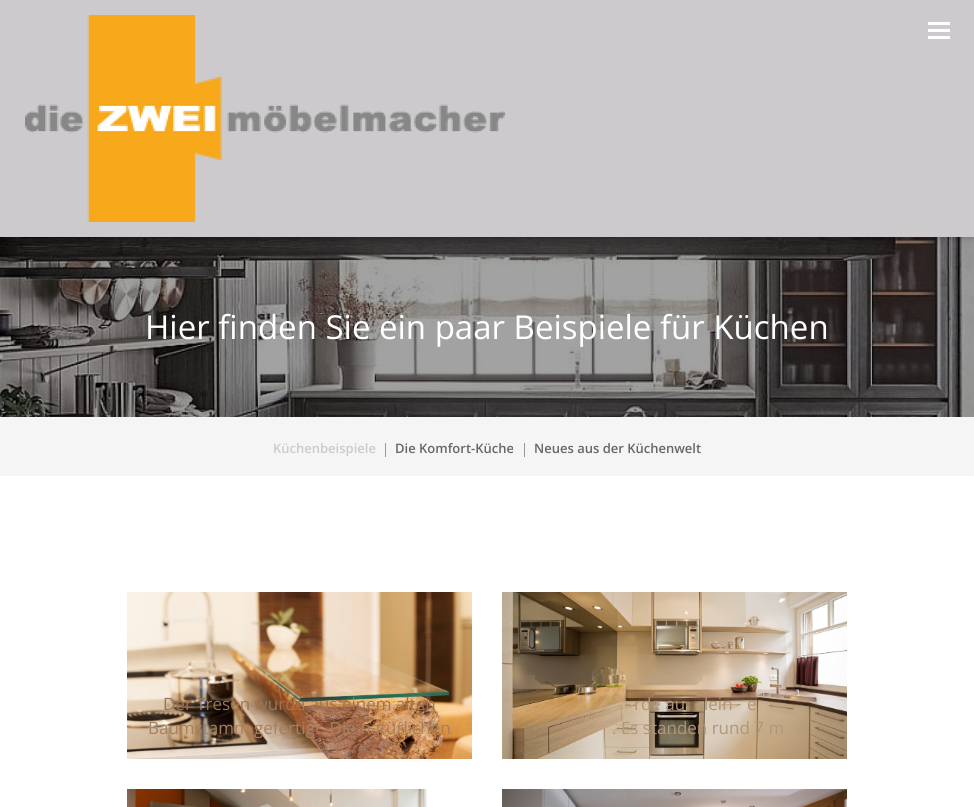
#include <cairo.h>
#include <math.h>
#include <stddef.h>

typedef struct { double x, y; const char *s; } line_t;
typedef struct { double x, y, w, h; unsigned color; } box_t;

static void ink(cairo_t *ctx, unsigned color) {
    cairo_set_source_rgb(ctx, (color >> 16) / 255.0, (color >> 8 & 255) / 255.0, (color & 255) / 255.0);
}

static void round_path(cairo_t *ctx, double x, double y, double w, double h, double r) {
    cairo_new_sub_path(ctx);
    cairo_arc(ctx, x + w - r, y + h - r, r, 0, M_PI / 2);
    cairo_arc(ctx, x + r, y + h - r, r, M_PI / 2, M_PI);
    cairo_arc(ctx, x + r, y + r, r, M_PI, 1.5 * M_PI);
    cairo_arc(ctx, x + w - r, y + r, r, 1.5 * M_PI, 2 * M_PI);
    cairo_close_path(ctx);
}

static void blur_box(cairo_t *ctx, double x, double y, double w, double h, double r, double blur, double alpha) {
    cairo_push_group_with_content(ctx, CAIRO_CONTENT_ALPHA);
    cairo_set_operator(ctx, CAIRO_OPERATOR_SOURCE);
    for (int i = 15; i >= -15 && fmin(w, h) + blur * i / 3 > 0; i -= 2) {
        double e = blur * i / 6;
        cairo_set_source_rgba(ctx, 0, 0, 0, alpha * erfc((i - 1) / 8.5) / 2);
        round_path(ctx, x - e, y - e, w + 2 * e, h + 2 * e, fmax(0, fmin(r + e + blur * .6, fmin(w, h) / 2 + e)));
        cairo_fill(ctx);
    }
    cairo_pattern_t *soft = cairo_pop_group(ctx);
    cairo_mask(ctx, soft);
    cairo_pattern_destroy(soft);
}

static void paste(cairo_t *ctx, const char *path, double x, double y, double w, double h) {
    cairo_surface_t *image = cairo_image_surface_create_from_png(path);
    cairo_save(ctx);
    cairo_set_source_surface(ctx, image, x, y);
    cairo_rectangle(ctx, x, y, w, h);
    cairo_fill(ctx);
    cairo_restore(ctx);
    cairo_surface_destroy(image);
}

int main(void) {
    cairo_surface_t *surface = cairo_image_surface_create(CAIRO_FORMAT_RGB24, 974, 807);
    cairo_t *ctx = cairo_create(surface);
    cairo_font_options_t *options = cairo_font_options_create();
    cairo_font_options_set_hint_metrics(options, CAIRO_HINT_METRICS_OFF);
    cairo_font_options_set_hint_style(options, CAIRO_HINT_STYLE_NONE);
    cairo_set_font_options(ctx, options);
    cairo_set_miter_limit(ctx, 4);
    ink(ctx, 0xFFFFFF);
    cairo_paint(ctx);
    paste(ctx, "media/2.png", 0, 237, 974, 180);
    ink(ctx, 0x000000);
    blur_box(ctx, 0, 2, 974, 237, 0, 5, 0.12);
    blur_box(ctx, 0, 0, 974, 237, 0, 2.5, 0.16);
    ink(ctx, 0xCCCACC);
    cairo_rectangle(ctx, 0, 0, 974, 237);
    cairo_fill(ctx);
    paste(ctx, "media/1.png", 25, 15, 480, 207);
    {
        static const box_t items[] = {
            {928, 22, 22, 3, 0xFFFFFF},
            {928, 29, 22, 3, 0xFFFFFF},
            {928, 36, 22, 3, 0xFFFFFF},
        };
        for (size_t i = 0; i < sizeof items / sizeof *items; i++) {
            ink(ctx, items[i].color);
            cairo_rectangle(ctx, items[i].x, items[i].y, items[i].w, items[i].h);
            cairo_fill(ctx);
        }
    }
    cairo_select_font_face(ctx, "Open Sans", CAIRO_FONT_SLANT_NORMAL, CAIRO_FONT_WEIGHT_NORMAL);
    cairo_set_font_size(ctx, 33);
    cairo_move_to(ctx, 145, 339);
    cairo_show_text(ctx, "Hier finden Sie ein paar Beispiele für Küchen");
    ink(ctx, 0xF5F5F5);
    cairo_rectangle(ctx, 0, 417, 974, 59);
    cairo_fill(ctx);
    cairo_select_font_face(ctx, "Open Sans SemiBold", CAIRO_FONT_SLANT_NORMAL, CAIRO_FONT_WEIGHT_NORMAL);
    cairo_set_font_size(ctx, 13);
    ink(ctx, 0xCCCACC);
    cairo_move_to(ctx, 273, 453);
    cairo_show_text(ctx, "Küchenbeispiele");
    ink(ctx, 0x999999);
    cairo_rectangle(ctx, 385, 443, 1, 14);
    cairo_fill(ctx);
    ink(ctx, 0x666666);
    cairo_move_to(ctx, 395, 453);
    cairo_show_text(ctx, "Die Komfort-Küche");
    ink(ctx, 0x999999);
    cairo_rectangle(ctx, 524, 443, 1, 14);
    cairo_fill(ctx);
    ink(ctx, 0x666666);
    cairo_move_to(ctx, 534, 453);
    cairo_show_text(ctx, "Neues aus der Küchenwelt");
    paste(ctx, "media/3.png", 127, 592, 345, 167);
    cairo_select_font_face(ctx, "Open Sans", CAIRO_FONT_SLANT_NORMAL, CAIRO_FONT_WEIGHT_NORMAL);
    cairo_set_font_size(ctx, 17);
    ink(ctx, 0x9F7550);
    cairo_move_to(ctx, 163, 710);
    cairo_show_text(ctx, "Der Tresen wurde aus einem alten");
    ink(ctx, 0xA9805E);
    cairo_move_to(ctx, 148, 734);
    cairo_show_text(ctx, "Baumstamm gefertigt. Die natürlichen");
    paste(ctx, "media/4.png", 502, 592, 345, 167);
    ink(ctx, 0xB09473);
    {
        static const line_t items[] = {
            {634, 710, "rde au"},
            {704, 710, "lein"},
            {747, 710, "e"},
        };
        for (size_t i = 0; i < sizeof items / sizeof *items; i++) {
            cairo_move_to(ctx, items[i].x, items[i].y);
            cairo_show_text(ctx, items[i].s);
        }
    }
    ink(ctx, 0xAE977B);
    cairo_move_to(ctx, 612, 734);
    cairo_show_text(ctx, ". Es standen rund 7 m");
    paste(ctx, "media/5.png", 127, 789, 300, 18);
    paste(ctx, "media/6.png", 502, 789, 345, 18);
    cairo_surface_write_to_png(surface, "image.png");
    cairo_font_options_destroy(options);
    cairo_destroy(ctx);
    cairo_surface_destroy(surface);
    return 0;
}
